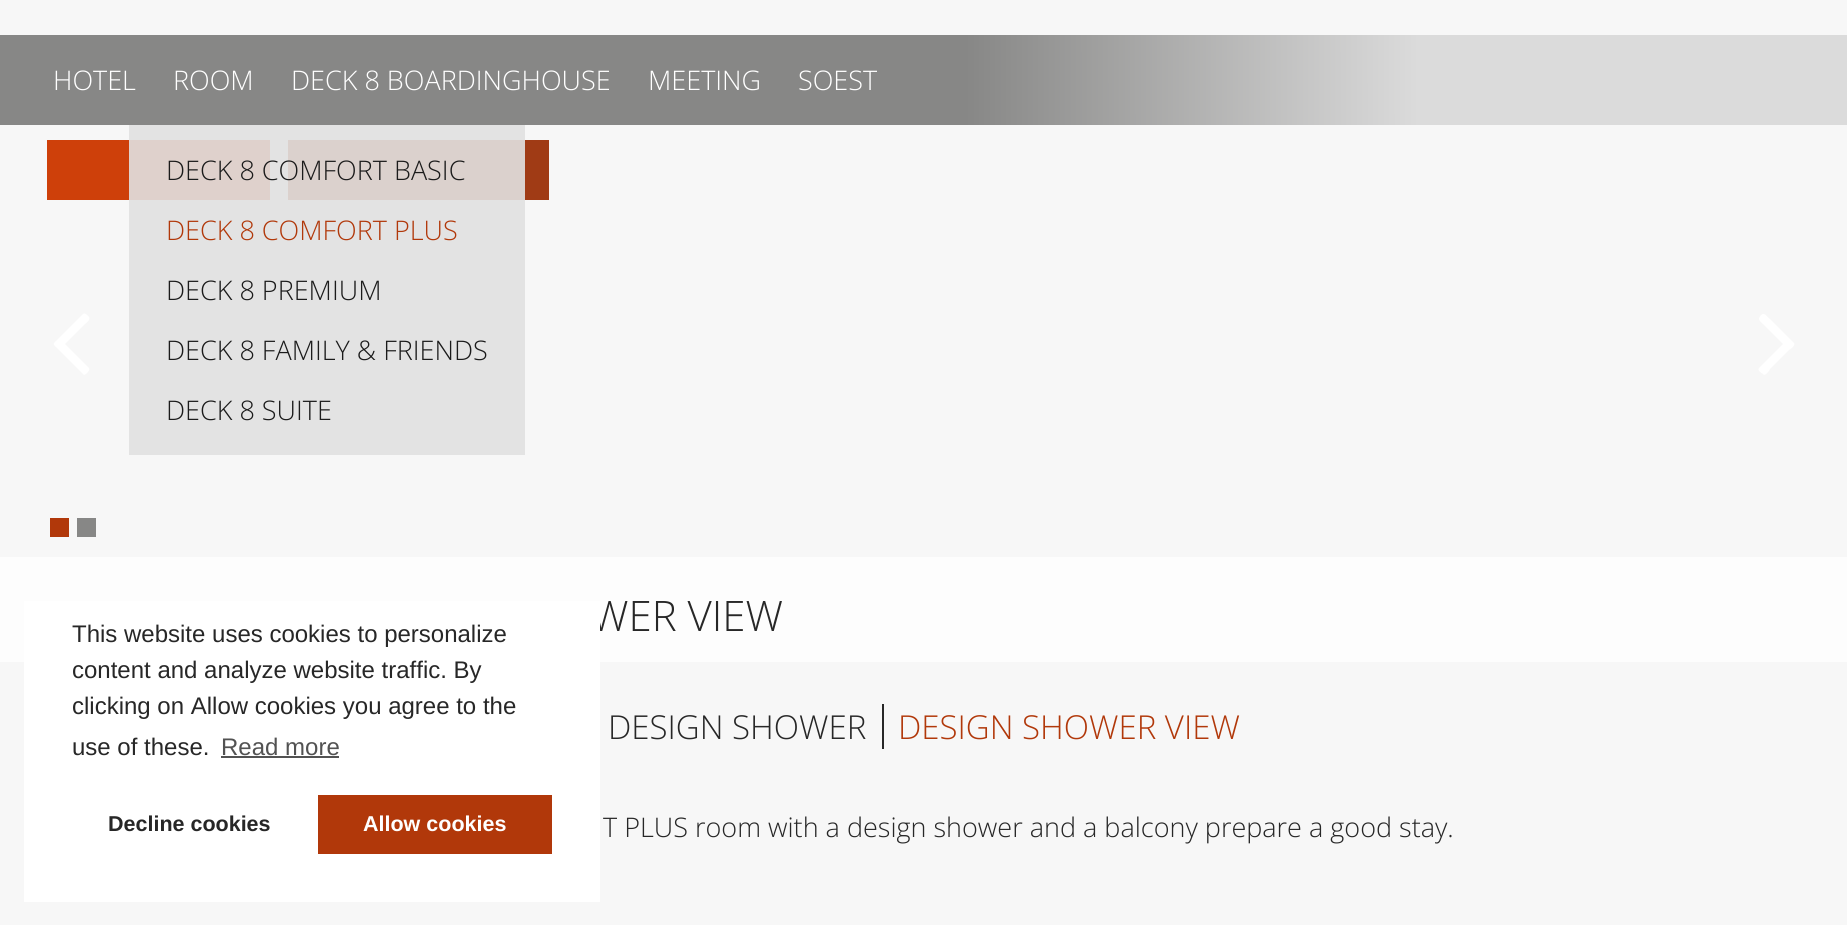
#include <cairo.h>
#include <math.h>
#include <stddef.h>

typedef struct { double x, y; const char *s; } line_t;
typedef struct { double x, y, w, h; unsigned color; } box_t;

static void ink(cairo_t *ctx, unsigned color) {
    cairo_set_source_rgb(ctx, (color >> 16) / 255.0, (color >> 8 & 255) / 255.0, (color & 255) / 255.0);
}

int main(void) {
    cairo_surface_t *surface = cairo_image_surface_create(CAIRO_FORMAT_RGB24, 1847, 925);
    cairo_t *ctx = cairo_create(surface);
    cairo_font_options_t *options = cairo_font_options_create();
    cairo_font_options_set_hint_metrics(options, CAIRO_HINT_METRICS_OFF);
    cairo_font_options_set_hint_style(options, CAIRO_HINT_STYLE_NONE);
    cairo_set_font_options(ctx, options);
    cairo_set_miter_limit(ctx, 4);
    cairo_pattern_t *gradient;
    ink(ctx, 0xF7F7F7);
    cairo_paint(ctx);
    gradient = cairo_pattern_create_linear(0, 80, 1419, 79);
    cairo_pattern_add_color_stop_rgba(gradient, 0, 0.529, 0.529, 0.525, 1);
    cairo_pattern_add_color_stop_rgba(gradient, 0.68, 0.529, 0.529, 0.525, 1);
    cairo_pattern_add_color_stop_rgba(gradient, 1, 0.859, 0.859, 0.859, 1);
    cairo_set_source(ctx, gradient);
    cairo_pattern_destroy(gradient);
    cairo_rectangle(ctx, 0, 35, 1419, 90);
    cairo_fill(ctx);
    ink(ctx, 0xDBDBDB);
    cairo_rectangle(ctx, 1419, 35, 428, 90);
    cairo_fill(ctx);
    cairo_select_font_face(ctx, "Open Sans Light", CAIRO_FONT_SLANT_NORMAL, CAIRO_FONT_WEIGHT_NORMAL);
    cairo_set_font_size(ctx, 27);
    ink(ctx, 0xFFFFFF);
    cairo_move_to(ctx, 53, 90);
    cairo_show_text(ctx, "HOTEL");
    cairo_move_to(ctx, 173, 90);
    cairo_show_text(ctx, "ROOM");
    ink(ctx, 0xCE400A);
    cairo_rectangle(ctx, 47, 140, 223, 60);
    cairo_fill(ctx);
    ink(ctx, 0xA03B15);
    cairo_rectangle(ctx, 288, 140, 261, 60);
    cairo_fill(ctx);
    cairo_set_source_rgba(ctx, 0.882, 0.882, 0.882, 0.9);
    cairo_rectangle(ctx, 129, 125, 396, 330);
    cairo_fill(ctx);
    ink(ctx, 0x1B1B1B);
    cairo_move_to(ctx, 166, 180);
    cairo_show_text(ctx, "DECK 8 COMFORT BASIC");
    ink(ctx, 0xB1380A);
    cairo_move_to(ctx, 166, 240);
    cairo_show_text(ctx, "DECK 8 COMFORT PLUS");
    ink(ctx, 0x1B1B1B);
    {
        static const line_t items[] = {
            {166, 300, "DECK 8 PREMIUM"},
            {166, 360, "DECK 8 FAMILY & FRIENDS"},
            {166, 420, "DECK 8 SUITE"},
        };
        for (size_t i = 0; i < sizeof items / sizeof *items; i++) {
            cairo_move_to(ctx, items[i].x, items[i].y);
            cairo_show_text(ctx, items[i].s);
        }
    }
    ink(ctx, 0xFFFFFF);
    {
        static const line_t items[] = {
            {291, 90, "DECK 8 BOARDINGHOUSE"},
            {648, 90, "MEETING"},
            {798, 90, "SOEST"},
        };
        for (size_t i = 0; i < sizeof items / sizeof *items; i++) {
            cairo_move_to(ctx, items[i].x, items[i].y);
            cairo_show_text(ctx, items[i].s);
        }
    }
    cairo_new_path(ctx);
    cairo_move_to(ctx, 89, 317);
    cairo_curve_to(ctx, 91, 320, 85, 324, 85, 324);
    cairo_line_to(ctx, 65, 344);
    cairo_line_to(ctx, 89, 368);
    cairo_curve_to(ctx, 90, 370, 88, 372, 87, 373);
    cairo_curve_to(ctx, 86, 374, 84, 376, 83, 374);
    cairo_line_to(ctx, 59, 350);
    cairo_curve_to(ctx, 52, 343, 52, 345, 59, 338);
    cairo_line_to(ctx, 83, 314);
    cairo_curve_to(ctx, 85, 312, 88, 316, 89, 317);
    cairo_close_path(ctx);
    cairo_fill(ctx);
    cairo_new_path(ctx);
    cairo_move_to(ctx, 1794, 343);
    cairo_curve_to(ctx, 1796, 346, 1789, 350, 1789, 350);
    cairo_line_to(ctx, 1770, 369);
    cairo_curve_to(ctx, 1770, 370, 1765, 377, 1763, 374);
    cairo_curve_to(ctx, 1761, 373, 1757, 370, 1759, 368);
    cairo_line_to(ctx, 1783, 344);
    cairo_line_to(ctx, 1763, 324);
    cairo_curve_to(ctx, 1763, 324, 1758, 320, 1759, 318);
    cairo_line_to(ctx, 1761, 315);
    cairo_curve_to(ctx, 1765, 312, 1766, 316, 1770, 319);
    cairo_close_path(ctx);
    cairo_fill(ctx);
    {
        static const box_t items[] = {
            {50, 518, 19, 19, 0xB1380A},
            {77, 518, 19, 19, 0x878786},
            {0, 557, 1847, 105, 0xFDFDFD},
        };
        for (size_t i = 0; i < sizeof items / sizeof *items; i++) {
            ink(ctx, items[i].color);
            cairo_rectangle(ctx, items[i].x, items[i].y, items[i].w, items[i].h);
            cairo_fill(ctx);
        }
    }
    cairo_set_font_size(ctx, 42);
    ink(ctx, 0x272727);
    cairo_move_to(ctx, 591, 631);
    cairo_show_text(ctx, "WER VIEW");
    ink(ctx, 0xFFFFFF);
    cairo_rectangle(ctx, 24, 601, 576, 301);
    cairo_fill(ctx);
    cairo_select_font_face(ctx, "Liberation Sans", CAIRO_FONT_SLANT_NORMAL, CAIRO_FONT_WEIGHT_NORMAL);
    cairo_set_font_size(ctx, 24);
    ink(ctx, 0x272727);
    {
        static const line_t items[] = {
            {72, 642, "This website uses cookies to personalize"},
            {72, 678, "content and analyze website traffic. By"},
            {72, 714, "clicking on Allow cookies you agree to the"},
            {72, 755, "use of these."},
        };
        for (size_t i = 0; i < sizeof items / sizeof *items; i++) {
            cairo_move_to(ctx, items[i].x, items[i].y);
            cairo_show_text(ctx, items[i].s);
        }
    }
    ink(ctx, 0x525252);
    cairo_move_to(ctx, 221, 755);
    cairo_show_text(ctx, "Read more");
    cairo_rectangle(ctx, 221, 756, 118, 2);
    cairo_fill(ctx);
    cairo_select_font_face(ctx, "Liberation Sans", CAIRO_FONT_SLANT_NORMAL, CAIRO_FONT_WEIGHT_BOLD);
    cairo_set_font_size(ctx, 21.5);
    ink(ctx, 0x272727);
    cairo_move_to(ctx, 108, 831);
    cairo_show_text(ctx, "Decline cookies");
    ink(ctx, 0xB1380A);
    cairo_rectangle(ctx, 318, 795, 234, 59);
    cairo_fill(ctx);
    ink(ctx, 0xFFFFFF);
    cairo_move_to(ctx, 363, 831);
    cairo_show_text(ctx, "Allow cookies");
    ink(ctx, 0x272727);
    cairo_rectangle(ctx, 882, 704, 2, 45);
    cairo_fill(ctx);
    cairo_select_font_face(ctx, "Open Sans Light", CAIRO_FONT_SLANT_NORMAL, CAIRO_FONT_WEIGHT_NORMAL);
    cairo_set_font_size(ctx, 33);
    cairo_move_to(ctx, 608, 739);
    cairo_show_text(ctx, "DESIGN SHOWER");
    ink(ctx, 0xB1380A);
    cairo_move_to(ctx, 898, 739);
    cairo_show_text(ctx, "DESIGN SHOWER VIEW");
    cairo_set_font_size(ctx, 27);
    ink(ctx, 0x272727);
    cairo_move_to(ctx, 603, 837);
    cairo_show_text(ctx, "T PLUS room with a design shower and a balcony prepare a good stay.");
    cairo_surface_write_to_png(surface, "image.png");
    cairo_font_options_destroy(options);
    cairo_destroy(ctx);
    cairo_surface_destroy(surface);
    return 0;
}
